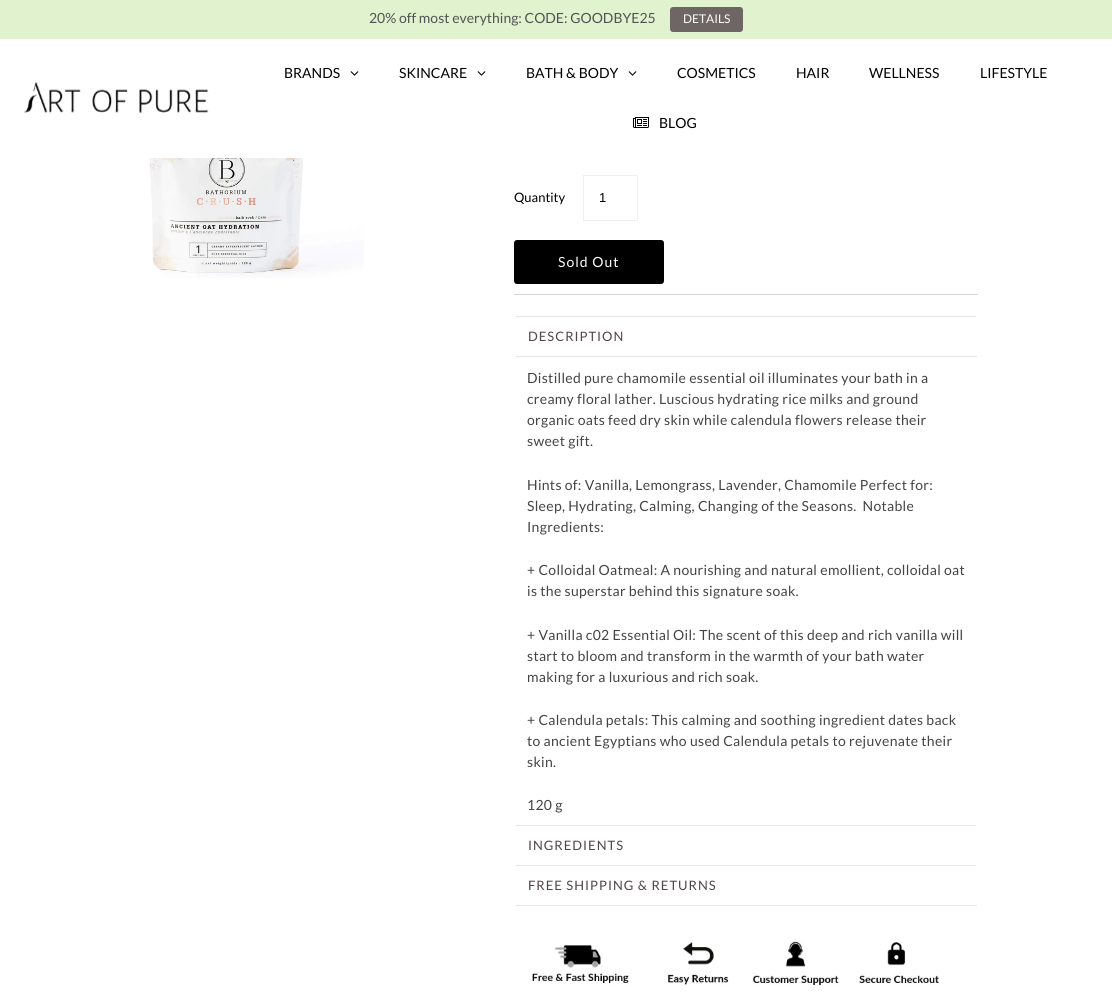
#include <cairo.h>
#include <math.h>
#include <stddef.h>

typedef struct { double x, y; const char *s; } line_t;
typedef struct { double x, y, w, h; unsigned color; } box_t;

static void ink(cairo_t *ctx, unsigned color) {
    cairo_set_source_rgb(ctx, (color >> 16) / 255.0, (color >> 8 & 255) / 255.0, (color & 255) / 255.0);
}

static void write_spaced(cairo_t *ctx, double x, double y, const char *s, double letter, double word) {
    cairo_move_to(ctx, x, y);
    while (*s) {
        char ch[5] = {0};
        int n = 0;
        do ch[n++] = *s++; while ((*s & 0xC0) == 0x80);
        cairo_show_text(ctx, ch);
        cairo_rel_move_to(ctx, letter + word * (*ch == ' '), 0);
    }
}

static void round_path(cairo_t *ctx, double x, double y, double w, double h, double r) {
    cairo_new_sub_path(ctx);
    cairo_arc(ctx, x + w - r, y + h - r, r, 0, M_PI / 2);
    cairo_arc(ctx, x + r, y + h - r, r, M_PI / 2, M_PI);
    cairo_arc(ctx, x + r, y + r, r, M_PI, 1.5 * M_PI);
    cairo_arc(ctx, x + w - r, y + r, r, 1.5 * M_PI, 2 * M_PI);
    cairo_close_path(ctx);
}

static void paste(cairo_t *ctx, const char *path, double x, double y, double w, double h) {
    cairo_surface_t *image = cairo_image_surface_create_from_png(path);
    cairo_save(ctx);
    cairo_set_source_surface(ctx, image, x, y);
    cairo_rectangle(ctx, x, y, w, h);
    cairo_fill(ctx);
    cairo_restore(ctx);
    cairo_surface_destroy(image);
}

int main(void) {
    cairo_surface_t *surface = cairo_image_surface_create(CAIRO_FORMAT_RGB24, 1112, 1008);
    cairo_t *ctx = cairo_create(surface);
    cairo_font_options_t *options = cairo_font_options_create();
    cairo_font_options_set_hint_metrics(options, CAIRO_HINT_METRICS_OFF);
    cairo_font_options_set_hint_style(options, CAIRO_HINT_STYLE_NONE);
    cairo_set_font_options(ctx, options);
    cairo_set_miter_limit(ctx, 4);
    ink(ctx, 0xFFFFFF);
    cairo_paint(ctx);
    ink(ctx, 0xE1F2CF);
    cairo_rectangle(ctx, 0, 0, 1112, 39);
    cairo_fill(ctx);
    cairo_select_font_face(ctx, "Lato", CAIRO_FONT_SLANT_NORMAL, CAIRO_FONT_WEIGHT_NORMAL);
    cairo_set_font_size(ctx, 14);
    ink(ctx, 0x505454);
    cairo_move_to(ctx, 369, 23);
    cairo_show_text(ctx, "20% off most everything: CODE: GOODBYE25");
    ink(ctx, 0x6E6565);
    round_path(ctx, 670, 7, 73, 25, 3);
    cairo_fill(ctx);
    cairo_set_font_size(ctx, 12);
    ink(ctx, 0xFCFFF5);
    cairo_move_to(ctx, 683, 23);
    cairo_show_text(ctx, "DETAILS");
    paste(ctx, "media/1.png", 23, 82, 186, 31);
    cairo_set_font_size(ctx, 14);
    ink(ctx, 0x000000);
    cairo_move_to(ctx, 284, 78);
    cairo_show_text(ctx, "BRANDS");
    paste(ctx, "media/2.png", 350, 71, 9, 5);
    cairo_move_to(ctx, 399, 78);
    cairo_show_text(ctx, "SKINCARE");
    paste(ctx, "media/2.png", 477, 71, 9, 5);
    cairo_move_to(ctx, 526, 78);
    cairo_show_text(ctx, "BATH & BODY");
    paste(ctx, "media/2.png", 628, 71, 9, 5);
    {
        static const line_t items[] = {
            {677, 78, "COSMETICS"},
            {796, 78, "HAIR"},
            {869, 78, "WELLNESS"},
            {980, 78, "LIFESTYLE"},
        };
        for (size_t i = 0; i < sizeof items / sizeof *items; i++) {
            cairo_move_to(ctx, items[i].x, items[i].y);
            cairo_show_text(ctx, items[i].s);
        }
    }
    paste(ctx, "media/3.png", 633, 117, 16, 11);
    cairo_move_to(ctx, 659, 128);
    cairo_show_text(ctx, "BLOG");
    paste(ctx, "media/4.png", 148, 158, 216, 120);
    ink(ctx, 0xD5D5D5);
    cairo_rectangle(ctx, 514, 294, 464, 1);
    cairo_fill(ctx);
    cairo_set_font_size(ctx, 13);
    ink(ctx, 0x000000);
    cairo_move_to(ctx, 514, 202);
    cairo_show_text(ctx, "Quantity");
    cairo_rectangle(ctx, 583.5, 175.5, 54, 45);
    ink(ctx, 0xF0EFEF);
    cairo_set_line_width(ctx, 1);
    cairo_stroke(ctx);
    cairo_select_font_face(ctx, "Liberation Sans", CAIRO_FONT_SLANT_NORMAL, CAIRO_FONT_WEIGHT_NORMAL);
    ink(ctx, 0x000000);
    cairo_move_to(ctx, 599, 202);
    cairo_show_text(ctx, "1");
    round_path(ctx, 514, 240, 150, 44, 3);
    cairo_fill(ctx);
    cairo_select_font_face(ctx, "Lato", CAIRO_FONT_SLANT_NORMAL, CAIRO_FONT_WEIGHT_NORMAL);
    cairo_set_font_size(ctx, 14);
    ink(ctx, 0xFFFFFF);
    write_spaced(ctx, 558, 267, "Sold Out", 1, 0);
    {
        static const box_t items[] = {
            {515, 316, 462, 1, 0xE6E6E6},
            {976, 316, 1, 1, 0xFFFFFF},
            {515, 356, 462, 1, 0xE6E6E6},
            {515, 316, 1, 41, 0xFFFFFF},
        };
        for (size_t i = 0; i < sizeof items / sizeof *items; i++) {
            ink(ctx, items[i].color);
            cairo_rectangle(ctx, items[i].x, items[i].y, items[i].w, items[i].h);
            cairo_fill(ctx);
        }
    }
    cairo_set_font_size(ctx, 13);
    ink(ctx, 0x514646);
    write_spaced(ctx, 528, 341, "DESCRIPTION", 1, 0);
    cairo_set_font_size(ctx, 14);
    ink(ctx, 0x444444);
    {
        static const line_t items[] = {
            {527, 383, "Distilled pure chamomile essential oil illuminates your bath in a"},
            {527, 404, "creamy floral lather. Luscious hydrating rice milks and ground"},
            {527, 425, "organic oats feed dry skin while calendula flowers release their"},
            {527, 446, "sweet gift."},
            {527, 490, "Hints of: Vanilla, Lemongrass, Lavender, Chamomile Perfect for:"},
            {527, 511, "Sleep, Hydrating, Calming, Changing of the Seasons.  Notable"},
            {527, 532, "Ingredients:"},
            {527, 575, "+ Colloidal Oatmeal: A nourishing and natural emollient, colloidal oat"},
            {527, 596, "is the superstar behind this signature soak."},
            {527, 640, "+ Vanilla c02 Essential Oil: The scent of this deep and rich vanilla will"},
            {527, 661, "start to bloom and transform in the warmth of your bath water"},
            {527, 682, "making for a luxurious and rich soak."},
            {527, 725, "+ Calendula petals: This calming and soothing ingredient dates back"},
            {527, 746, "to ancient Egyptians who used Calendula petals to rejuvenate their"},
            {527, 767, "skin."},
            {527, 810, "120 g"},
        };
        for (size_t i = 0; i < sizeof items / sizeof *items; i++) {
            write_spaced(ctx, items[i].x, items[i].y, items[i].s, 0.3, 0);
        }
    }
    {
        static const box_t items[] = {
            {515, 825, 462, 1, 0xE6E6E6},
            {976, 825, 1, 1, 0xFFFFFF},
            {515, 825, 1, 1, 0xFFFFFF},
        };
        for (size_t i = 0; i < sizeof items / sizeof *items; i++) {
            ink(ctx, items[i].color);
            cairo_rectangle(ctx, items[i].x, items[i].y, items[i].w, items[i].h);
            cairo_fill(ctx);
        }
    }
    cairo_set_font_size(ctx, 13);
    ink(ctx, 0x514646);
    write_spaced(ctx, 528, 850, "INGREDIENTS", 1, 0);
    {
        static const box_t items[] = {
            {515, 865, 462, 1, 0xE6E6E6},
            {976, 865, 1, 1, 0xFFFFFF},
            {515, 905, 462, 1, 0xE6E6E6},
            {515, 865, 1, 41, 0xFFFFFF},
        };
        for (size_t i = 0; i < sizeof items / sizeof *items; i++) {
            ink(ctx, items[i].color);
            cairo_rectangle(ctx, items[i].x, items[i].y, items[i].w, items[i].h);
            cairo_fill(ctx);
        }
    }
    ink(ctx, 0x514646);
    write_spaced(ctx, 528, 890, "FREE SHIPPING & RETURNS", 1, 0);
    paste(ctx, "media/5.png", 532, 941, 408, 45);
    cairo_surface_write_to_png(surface, "image.png");
    cairo_font_options_destroy(options);
    cairo_destroy(ctx);
    cairo_surface_destroy(surface);
    return 0;
}
